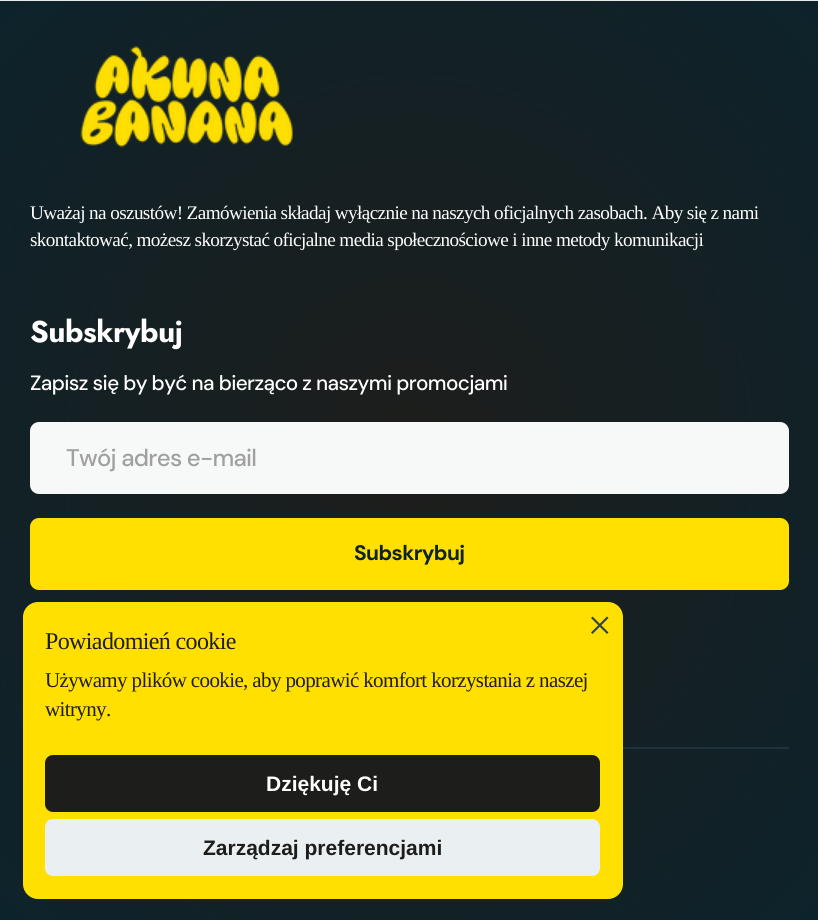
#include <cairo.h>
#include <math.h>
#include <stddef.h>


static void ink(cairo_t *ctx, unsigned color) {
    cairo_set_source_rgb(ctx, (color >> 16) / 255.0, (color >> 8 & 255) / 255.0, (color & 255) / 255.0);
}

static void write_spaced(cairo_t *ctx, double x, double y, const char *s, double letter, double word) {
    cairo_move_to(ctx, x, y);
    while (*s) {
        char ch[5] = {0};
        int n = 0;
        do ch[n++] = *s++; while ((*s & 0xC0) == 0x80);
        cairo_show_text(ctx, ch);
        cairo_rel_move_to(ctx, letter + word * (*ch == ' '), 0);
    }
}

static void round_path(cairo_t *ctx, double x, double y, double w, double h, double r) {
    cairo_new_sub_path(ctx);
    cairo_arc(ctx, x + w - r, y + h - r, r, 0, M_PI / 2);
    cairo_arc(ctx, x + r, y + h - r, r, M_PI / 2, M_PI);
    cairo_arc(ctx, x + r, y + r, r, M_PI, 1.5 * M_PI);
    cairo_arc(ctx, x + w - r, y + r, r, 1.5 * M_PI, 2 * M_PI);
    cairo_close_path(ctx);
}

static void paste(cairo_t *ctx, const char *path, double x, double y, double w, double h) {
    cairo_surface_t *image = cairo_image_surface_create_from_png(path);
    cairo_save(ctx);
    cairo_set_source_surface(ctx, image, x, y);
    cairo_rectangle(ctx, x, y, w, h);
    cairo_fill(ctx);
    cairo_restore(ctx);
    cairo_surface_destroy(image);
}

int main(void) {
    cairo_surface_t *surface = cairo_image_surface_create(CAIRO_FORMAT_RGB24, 818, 920);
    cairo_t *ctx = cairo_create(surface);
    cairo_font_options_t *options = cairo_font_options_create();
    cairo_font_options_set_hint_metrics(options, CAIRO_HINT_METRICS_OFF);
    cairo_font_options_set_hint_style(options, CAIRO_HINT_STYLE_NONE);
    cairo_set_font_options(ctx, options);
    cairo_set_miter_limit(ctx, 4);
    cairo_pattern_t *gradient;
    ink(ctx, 0xFFFFFF);
    cairo_paint(ctx);
    ink(ctx, 0xE6E8E9);
    cairo_rectangle(ctx, 0, 0, 818, 1);
    cairo_fill(ctx);
    gradient = cairo_pattern_create_radial(0, 0, 0, 0, 0, 1);
    cairo_pattern_set_matrix(gradient, &(cairo_matrix_t){1.0 / 579, 0, 0, 1.0 / 651, -1.0 * 410 / 579, -1.0 * 461 / 651});
    cairo_pattern_add_color_stop_rgba(gradient, 0, 0.114, 0.114, 0.106, 1);
    cairo_pattern_add_color_stop_rgba(gradient, 1, 0.051, 0.137, 0.169, 1);
    cairo_set_source(ctx, gradient);
    cairo_pattern_destroy(gradient);
    cairo_rectangle(ctx, 0, 1, 818, 919);
    cairo_fill(ctx);
    paste(ctx, "media/1.png", 80, 46, 213, 102);
    cairo_select_font_face(ctx, "Liberation Serif", CAIRO_FONT_SLANT_NORMAL, CAIRO_FONT_WEIGHT_NORMAL);
    cairo_set_font_size(ctx, 19.2);
    ink(ctx, 0xFFFFFF);
    write_spaced(ctx, 30, 219, "Uważaj na oszustów! Zamówienia składaj wyłącznie na naszych oficjalnych zasobach. Aby się z nami", -0.62, 0);
    write_spaced(ctx, 30, 246, "skontaktować, możesz skorzystać oficjalne media społecznościowe i inne metody komunikacji", -0.62, 0);
    cairo_select_font_face(ctx, "Jost", CAIRO_FONT_SLANT_NORMAL, CAIRO_FONT_WEIGHT_BOLD);
    cairo_set_font_size(ctx, 30);
    write_spaced(ctx, 30, 342, "Subskrybuj", -0.5, 0);
    cairo_select_font_face(ctx, "DM Sans Medium", CAIRO_FONT_SLANT_NORMAL, CAIRO_FONT_WEIGHT_NORMAL);
    cairo_set_font_size(ctx, 20.7);
    write_spaced(ctx, 30, 390, "Zapisz się by być na bierząco z naszymi promocjami", -0.62, 0);
    ink(ctx, 0xF7F8F8);
    round_path(ctx, 30, 422, 759, 72, 9);
    cairo_fill(ctx);
    cairo_select_font_face(ctx, "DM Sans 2 Medium", CAIRO_FONT_SLANT_NORMAL, CAIRO_FONT_WEIGHT_NORMAL);
    cairo_set_font_size(ctx, 24);
    ink(ctx, 0xA0A0A0);
    write_spaced(ctx, 66, 466, "Twój adres e-mail", -0.75, 0);
    ink(ctx, 0xFFE000);
    round_path(ctx, 30, 518, 759, 72, 9);
    cairo_fill(ctx);
    cairo_select_font_face(ctx, "DM Sans", CAIRO_FONT_SLANT_NORMAL, CAIRO_FONT_WEIGHT_BOLD);
    cairo_set_font_size(ctx, 21);
    ink(ctx, 0x0D232B);
    write_spaced(ctx, 354, 560, "Subskrybuj", -0.6, 0);
    ink(ctx, 0x1F323E);
    cairo_rectangle(ctx, 623, 747, 166, 2);
    cairo_fill(ctx);
    ink(ctx, 0xFFE000);
    round_path(ctx, 23, 602, 600, 297, 15);
    cairo_fill(ctx);
    ink(ctx, 0x2D4156);
    cairo_new_path(ctx);
    cairo_move_to(ctx, 607, 616.5);
    cairo_line_to(ctx, 608.5, 618);
    cairo_line_to(ctx, 592.5, 634);
    cairo_line_to(ctx, 591, 632.5);
    cairo_close_path(ctx);
    cairo_fill(ctx);
    cairo_new_path(ctx);
    cairo_move_to(ctx, 591, 618);
    cairo_line_to(ctx, 592.5, 616.5);
    cairo_line_to(ctx, 608.5, 632.5);
    cairo_line_to(ctx, 607, 634);
    cairo_close_path(ctx);
    cairo_fill(ctx);
    cairo_select_font_face(ctx, "Liberation Serif", CAIRO_FONT_SLANT_NORMAL, CAIRO_FONT_WEIGHT_NORMAL);
    cairo_set_font_size(ctx, 24);
    ink(ctx, 0x1D1D1B);
    write_spaced(ctx, 45, 649, "Powiadomień cookie", -0.62, 0);
    cairo_set_font_size(ctx, 21);
    write_spaced(ctx, 45, 687, "Używamy plików cookie, aby poprawić komfort korzystania z naszej", -0.62, 0);
    write_spaced(ctx, 45, 716, "witryny.", -0.62, 0);
    round_path(ctx, 45, 755, 555, 57, 8);
    cairo_fill(ctx);
    cairo_select_font_face(ctx, "Liberation Sans", CAIRO_FONT_SLANT_NORMAL, CAIRO_FONT_WEIGHT_BOLD);
    ink(ctx, 0xFFFFFF);
    cairo_move_to(ctx, 266, 791);
    cairo_show_text(ctx, "Dziękuję Ci");
    ink(ctx, 0xEAEFF2);
    round_path(ctx, 45, 819, 555, 57, 8);
    cairo_fill(ctx);
    ink(ctx, 0x1D1D1B);
    cairo_move_to(ctx, 203, 855);
    cairo_show_text(ctx, "Zarządzaj preferencjami");
    cairo_surface_write_to_png(surface, "image.png");
    cairo_font_options_destroy(options);
    cairo_destroy(ctx);
    cairo_surface_destroy(surface);
    return 0;
}
